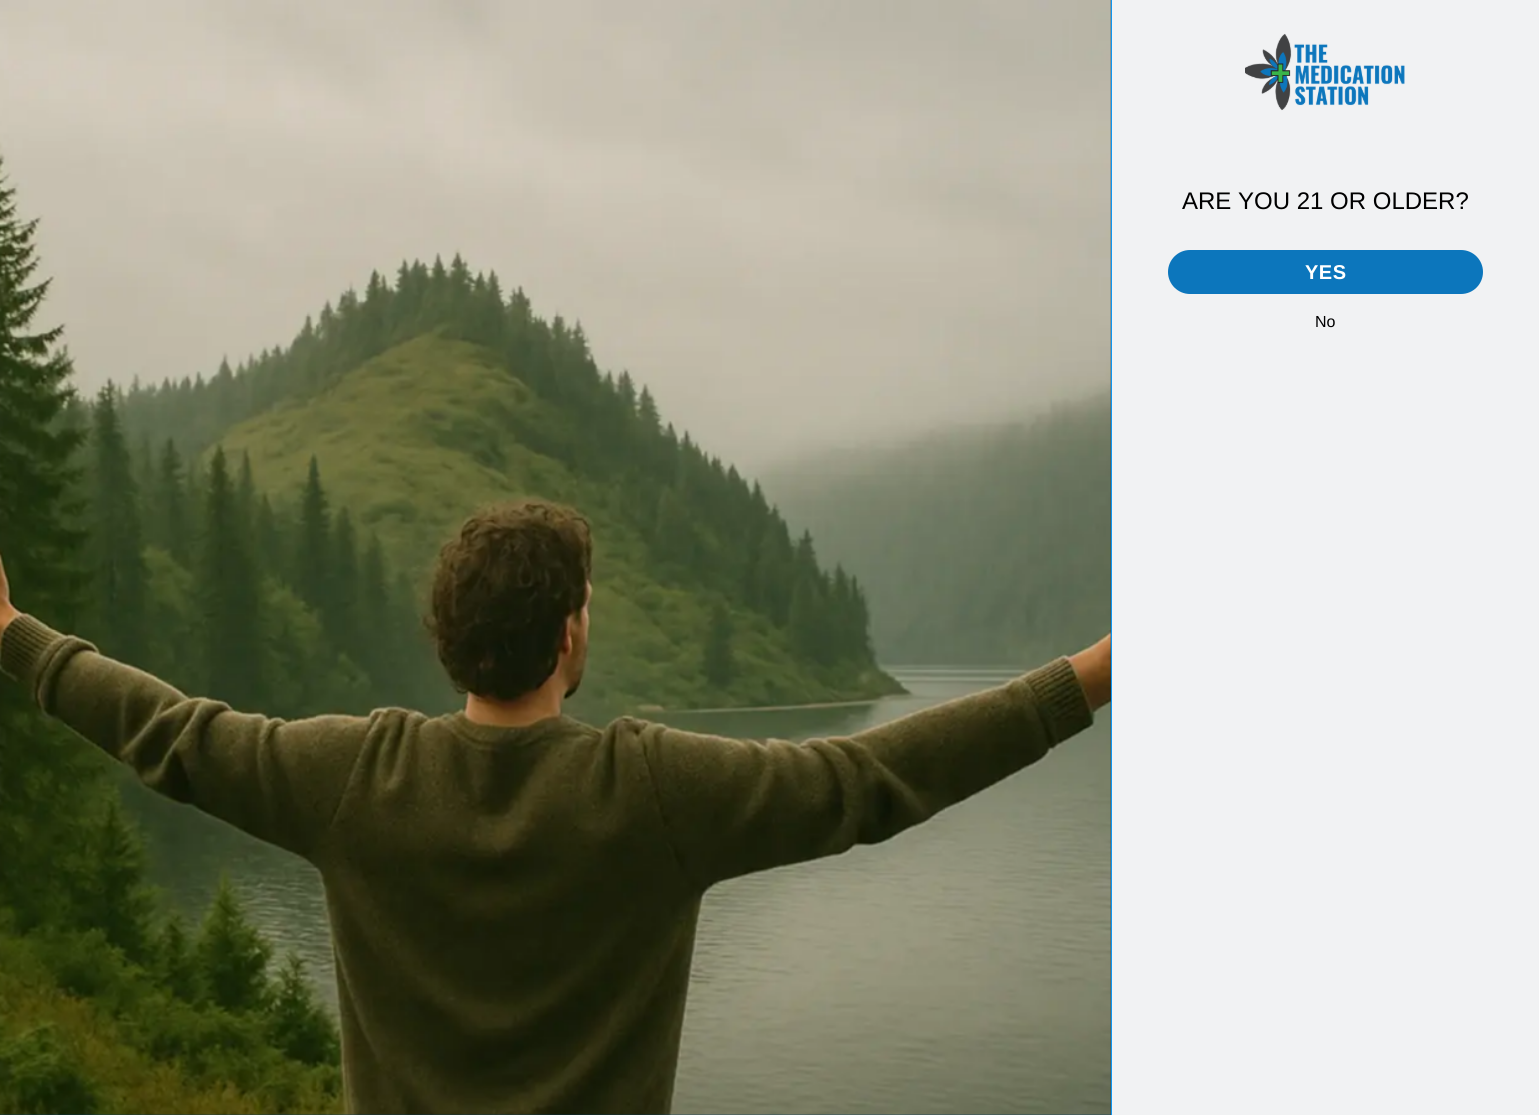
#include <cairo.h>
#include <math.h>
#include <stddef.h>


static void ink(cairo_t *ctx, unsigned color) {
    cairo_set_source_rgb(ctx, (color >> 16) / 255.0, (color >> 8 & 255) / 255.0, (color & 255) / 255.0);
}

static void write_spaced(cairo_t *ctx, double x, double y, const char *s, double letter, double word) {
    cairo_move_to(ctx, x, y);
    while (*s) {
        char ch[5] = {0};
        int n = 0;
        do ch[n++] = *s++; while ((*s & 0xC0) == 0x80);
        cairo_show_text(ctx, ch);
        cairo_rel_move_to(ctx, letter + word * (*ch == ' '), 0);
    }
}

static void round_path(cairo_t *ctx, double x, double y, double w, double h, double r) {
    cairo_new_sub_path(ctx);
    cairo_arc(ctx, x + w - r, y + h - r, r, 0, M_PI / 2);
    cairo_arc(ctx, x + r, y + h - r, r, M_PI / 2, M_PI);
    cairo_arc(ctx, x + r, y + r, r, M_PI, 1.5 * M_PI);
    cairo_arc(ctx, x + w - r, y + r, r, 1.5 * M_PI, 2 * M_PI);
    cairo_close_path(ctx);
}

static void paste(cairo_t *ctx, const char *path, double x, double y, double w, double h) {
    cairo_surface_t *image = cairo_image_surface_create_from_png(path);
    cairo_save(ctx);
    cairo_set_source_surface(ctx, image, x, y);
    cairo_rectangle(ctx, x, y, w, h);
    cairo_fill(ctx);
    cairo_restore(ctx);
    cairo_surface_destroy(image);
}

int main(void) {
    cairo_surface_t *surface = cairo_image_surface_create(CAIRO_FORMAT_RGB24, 1539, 1115);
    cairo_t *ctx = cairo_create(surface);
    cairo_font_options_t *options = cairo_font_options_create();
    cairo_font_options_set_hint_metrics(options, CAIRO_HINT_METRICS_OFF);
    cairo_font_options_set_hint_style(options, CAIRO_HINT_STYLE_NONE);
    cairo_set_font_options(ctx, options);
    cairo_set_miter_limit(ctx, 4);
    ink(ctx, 0x063C60);
    cairo_paint(ctx);
    paste(ctx, "media/1.png", 0, 0, 1111, 1115);
    ink(ctx, 0xF1F2F3);
    cairo_rectangle(ctx, 1112, 0, 427, 1115);
    cairo_fill(ctx);
    ink(ctx, 0x0F96F0);
    cairo_rectangle(ctx, 1111, 0, 1, 1115);
    cairo_fill(ctx);
    paste(ctx, "media/2.png", 1245, 33, 160, 78);
    cairo_select_font_face(ctx, "Liberation Sans", CAIRO_FONT_SLANT_NORMAL, CAIRO_FONT_WEIGHT_NORMAL);
    cairo_set_font_size(ctx, 24);
    ink(ctx, 0x000000);
    cairo_move_to(ctx, 1182, 209);
    cairo_show_text(ctx, "ARE YOU 21 OR OLDER?");
    ink(ctx, 0x0C76BC);
    round_path(ctx, 1168, 250, 315, 44, 22);
    cairo_fill(ctx);
    cairo_select_font_face(ctx, "Liberation Sans", CAIRO_FONT_SLANT_NORMAL, CAIRO_FONT_WEIGHT_BOLD);
    cairo_set_font_size(ctx, 20);
    ink(ctx, 0xFFFFFF);
    write_spaced(ctx, 1305, 279, "YES", 0.5, 0);
    cairo_select_font_face(ctx, "Liberation Sans", CAIRO_FONT_SLANT_NORMAL, CAIRO_FONT_WEIGHT_NORMAL);
    cairo_set_font_size(ctx, 16);
    ink(ctx, 0x000000);
    cairo_move_to(ctx, 1315, 327);
    cairo_show_text(ctx, "No");
    cairo_surface_write_to_png(surface, "image.png");
    cairo_font_options_destroy(options);
    cairo_destroy(ctx);
    cairo_surface_destroy(surface);
    return 0;
}
